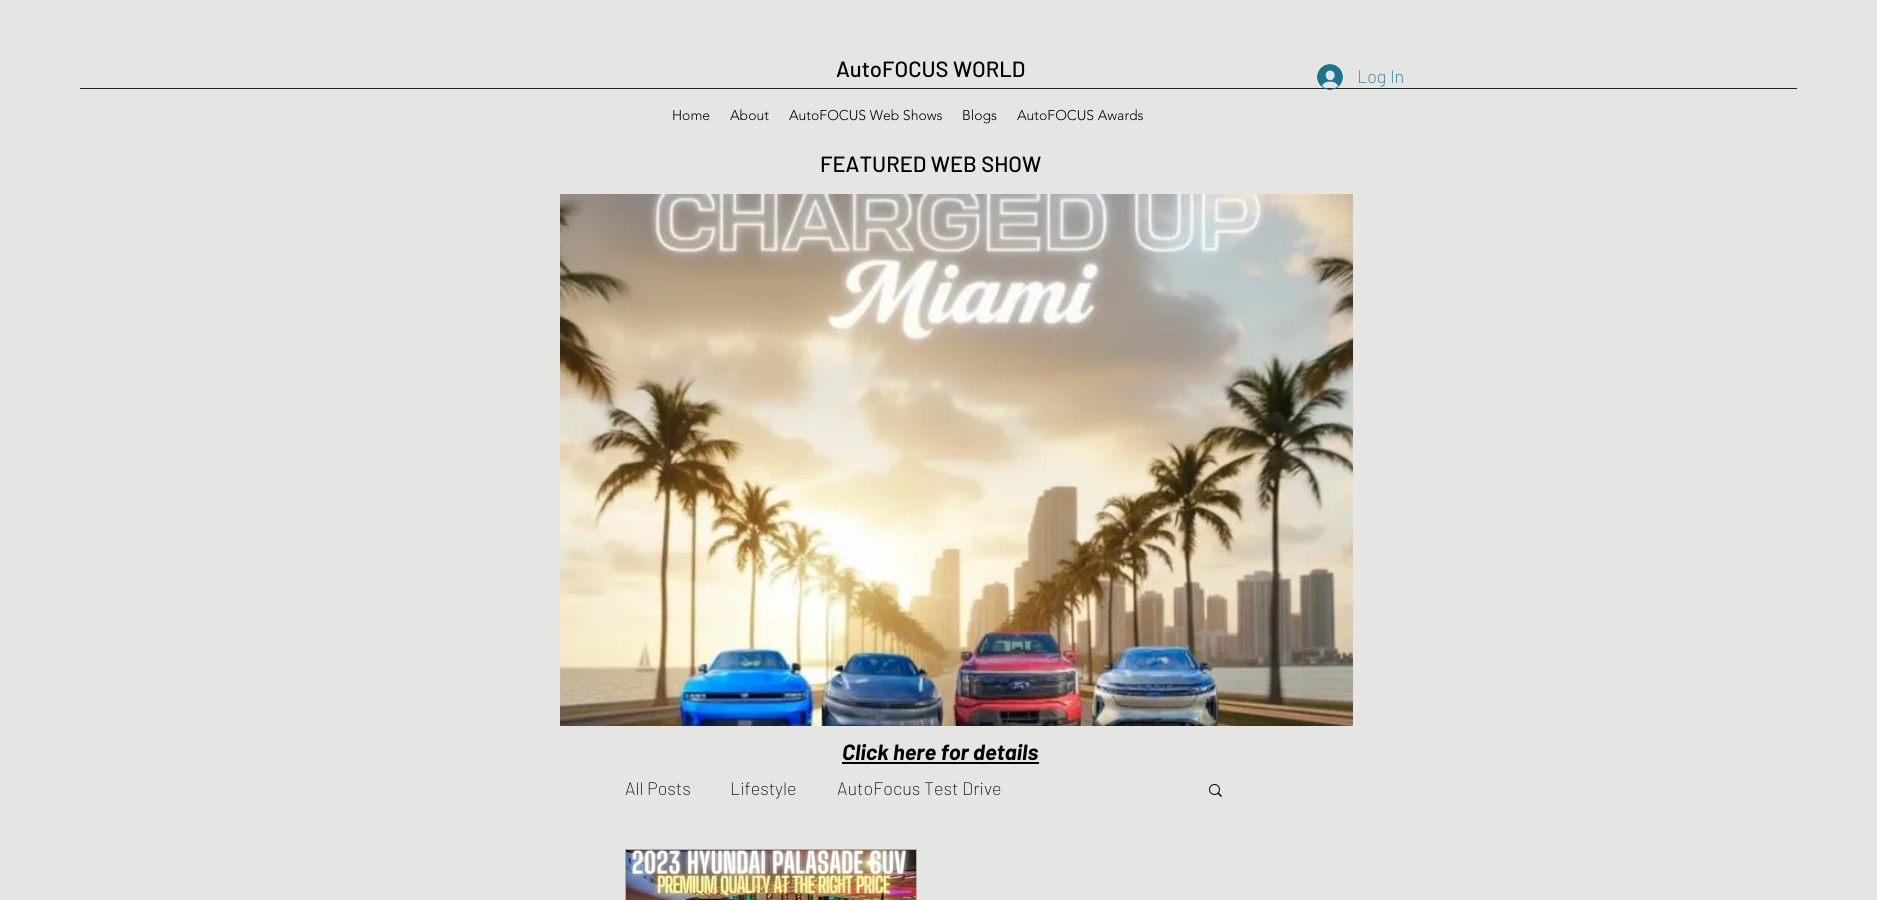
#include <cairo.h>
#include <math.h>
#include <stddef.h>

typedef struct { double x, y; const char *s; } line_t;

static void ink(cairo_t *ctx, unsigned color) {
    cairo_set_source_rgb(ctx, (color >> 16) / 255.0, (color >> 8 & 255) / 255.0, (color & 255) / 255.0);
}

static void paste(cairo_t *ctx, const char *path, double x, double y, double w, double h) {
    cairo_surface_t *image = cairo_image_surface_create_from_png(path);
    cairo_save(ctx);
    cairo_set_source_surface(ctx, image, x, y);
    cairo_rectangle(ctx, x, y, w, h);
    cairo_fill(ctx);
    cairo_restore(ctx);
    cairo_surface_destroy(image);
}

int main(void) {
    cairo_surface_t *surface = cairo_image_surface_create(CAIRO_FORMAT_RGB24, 1877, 900);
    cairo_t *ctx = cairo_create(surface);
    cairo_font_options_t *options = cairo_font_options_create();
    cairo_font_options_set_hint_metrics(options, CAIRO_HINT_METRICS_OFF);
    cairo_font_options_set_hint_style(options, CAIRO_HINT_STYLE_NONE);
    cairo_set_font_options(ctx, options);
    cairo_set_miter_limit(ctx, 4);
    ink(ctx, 0xE5E5E4);
    cairo_paint(ctx);
    cairo_select_font_face(ctx, "Barlow Medium", CAIRO_FONT_SLANT_NORMAL, CAIRO_FONT_WEIGHT_NORMAL);
    cairo_set_font_size(ctx, 22);
    ink(ctx, 0x000000);
    cairo_move_to(ctx, 836, 77);
    cairo_show_text(ctx, "AutoFOCUS WORLD");
    ink(ctx, 0x222222);
    cairo_rectangle(ctx, 80, 88, 1717, 1);
    cairo_fill(ctx);
    paste(ctx, "media/1.png", 1317, 64, 26, 26);
    cairo_select_font_face(ctx, "Barlow ExtraLight", CAIRO_FONT_SLANT_NORMAL, CAIRO_FONT_WEIGHT_NORMAL);
    cairo_set_font_size(ctx, 18);
    ink(ctx, 0x1C758F);
    cairo_move_to(ctx, 1357, 83);
    cairo_show_text(ctx, "Log In");
    cairo_select_font_face(ctx, "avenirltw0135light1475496 Light", CAIRO_FONT_SLANT_NORMAL, CAIRO_FONT_WEIGHT_NORMAL);
    cairo_set_font_size(ctx, 14);
    ink(ctx, 0x000000);
    {
        static const line_t items[] = {
            {672, 120, "Home"},
            {730, 120, "About"},
            {789, 120, "AutoFOCUS Web Shows"},
            {962, 120, "Blogs"},
            {1017, 120, "AutoFOCUS Awards"},
        };
        for (size_t i = 0; i < sizeof items / sizeof *items; i++) {
            cairo_move_to(ctx, items[i].x, items[i].y);
            cairo_show_text(ctx, items[i].s);
        }
    }
    cairo_select_font_face(ctx, "Barlow Medium", CAIRO_FONT_SLANT_NORMAL, CAIRO_FONT_WEIGHT_NORMAL);
    cairo_set_font_size(ctx, 22);
    cairo_move_to(ctx, 820, 172);
    cairo_show_text(ctx, "FEATURED WEB SHOW");
    paste(ctx, "media/2.png", 560, 194, 793, 532);
    cairo_select_font_face(ctx, "Barlow", CAIRO_FONT_SLANT_ITALIC, CAIRO_FONT_WEIGHT_BOLD);
    cairo_move_to(ctx, 842, 760);
    cairo_show_text(ctx, "Click here for details");
    cairo_rectangle(ctx, 842, 762, 197, 2);
    cairo_fill(ctx);
    cairo_select_font_face(ctx, "Barlow ExtraLight", CAIRO_FONT_SLANT_NORMAL, CAIRO_FONT_WEIGHT_NORMAL);
    cairo_set_font_size(ctx, 18);
    {
        static const line_t items[] = {
            {625, 795, "All Posts"},
            {730, 795, "Lifestyle"},
            {837, 795, "AutoFocus Test Drive"},
        };
        for (size_t i = 0; i < sizeof items / sizeof *items; i++) {
            cairo_move_to(ctx, items[i].x, items[i].y);
            cairo_show_text(ctx, items[i].s);
        }
    }
    paste(ctx, "media/3.png", 1209, 784, 13, 13);
    cairo_rectangle(ctx, 625.5, 849.5, 291, 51);
    ink(ctx, 0xACACAB);
    cairo_set_line_width(ctx, 1);
    cairo_stroke(ctx);
    paste(ctx, "media/4.png", 626, 850, 290, 50);
    cairo_surface_write_to_png(surface, "image.png");
    cairo_font_options_destroy(options);
    cairo_destroy(ctx);
    cairo_surface_destroy(surface);
    return 0;
}
